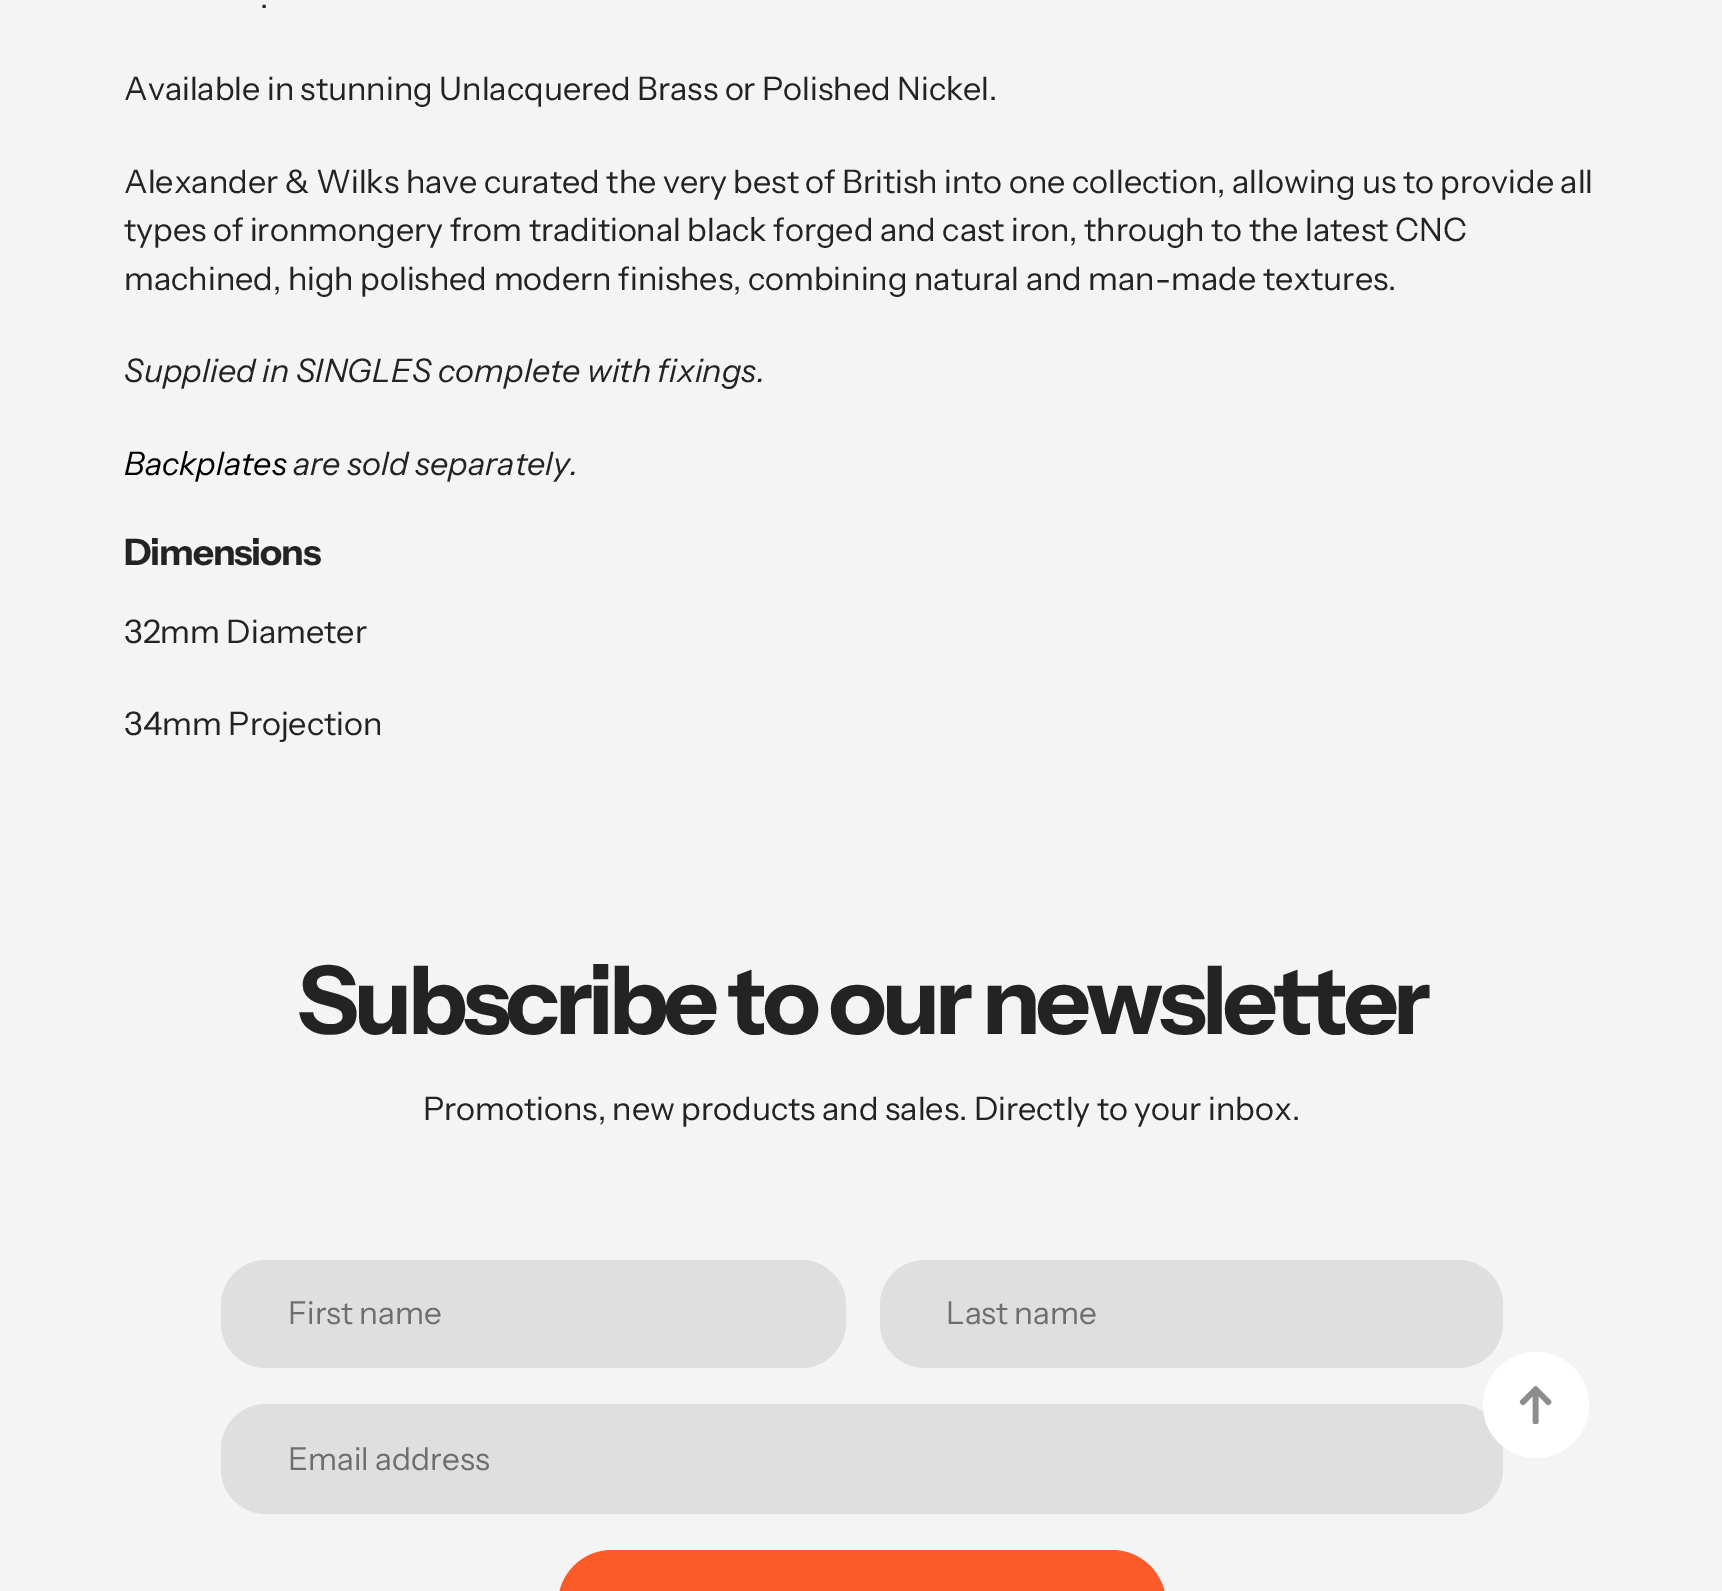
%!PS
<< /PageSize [1722 1591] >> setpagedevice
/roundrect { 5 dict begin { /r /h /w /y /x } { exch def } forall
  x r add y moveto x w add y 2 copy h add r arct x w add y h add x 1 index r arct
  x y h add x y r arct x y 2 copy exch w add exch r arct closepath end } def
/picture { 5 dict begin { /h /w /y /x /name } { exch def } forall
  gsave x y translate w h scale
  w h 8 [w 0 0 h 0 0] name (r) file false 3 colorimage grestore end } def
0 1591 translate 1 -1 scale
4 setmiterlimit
0.957 setgray
0 0 1722 1591 rectfill
/InstrumentSans-Regular [32.4 0 0 -32.4 0 0] selectfont
0.137 setgray
260 8 moveto (.) show
124 100 moveto (Available in stunning Unlacquered Brass or Polished Nickel.) show
124 193 moveto (Alexander & Wilks have curated the very best of British into one collection, allowing us to provide all) show
124 241 moveto (types of ironmongery from traditional black forged and cast iron, through to the latest CNC) show
124 290 moveto (machined, high polished modern finishes, combining natural and man-made textures.) show
/InstrumentSans-Italic [32.4 0 0 -32.4 0 0] selectfont
124 382 moveto (Supplied in SINGLES complete with fixings.) show
0 setgray
124 475 moveto (Backplates) show
0.137 setgray
293 475 moveto (are sold separately.) show
/InstrumentSans-Bold [36.5 0 0 -36.5 0 0] selectfont
124 565 moveto -1.1 0 (Dimensions) ashow
/InstrumentSans-Regular [32.4 0 0 -32.4 0 0] selectfont
124 643 moveto (32mm Diameter) show
124 735 moveto (34mm Projection) show
/InstrumentSans-Bold [94.75 0 0 -94.75 0 0] selectfont
297 1034 moveto -4.5 0 (Subscribe to our newsletter) ashow
/InstrumentSans-Regular [32.4 0 0 -32.4 0 0] selectfont
423 1120 moveto (Promotions, new products and sales. Directly to your inbox.) show
0.875 setgray
221 1260 625 108 45 roundrect fill
/InstrumentSans-Regular [31.5 0 0 -31.5 0 0] selectfont
0.431 setgray
288 1324 moveto (First name) show
0.875 setgray
880 1260 623 108 45 roundrect fill
0.431 setgray
946 1324 moveto (Last name) show
0.875 setgray
221 1404 1282 110 45 roundrect fill
0.431 setgray
288 1470 moveto (Email address) show
0.992 0.357 0.165 setrgbcolor
558 1550 608 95 54 roundrect fill
1 setgray
newpath 1536 1405 53 0 360 arc closepath fill
(img1.rgb) 1519 1386 33 38 picture
showpage
